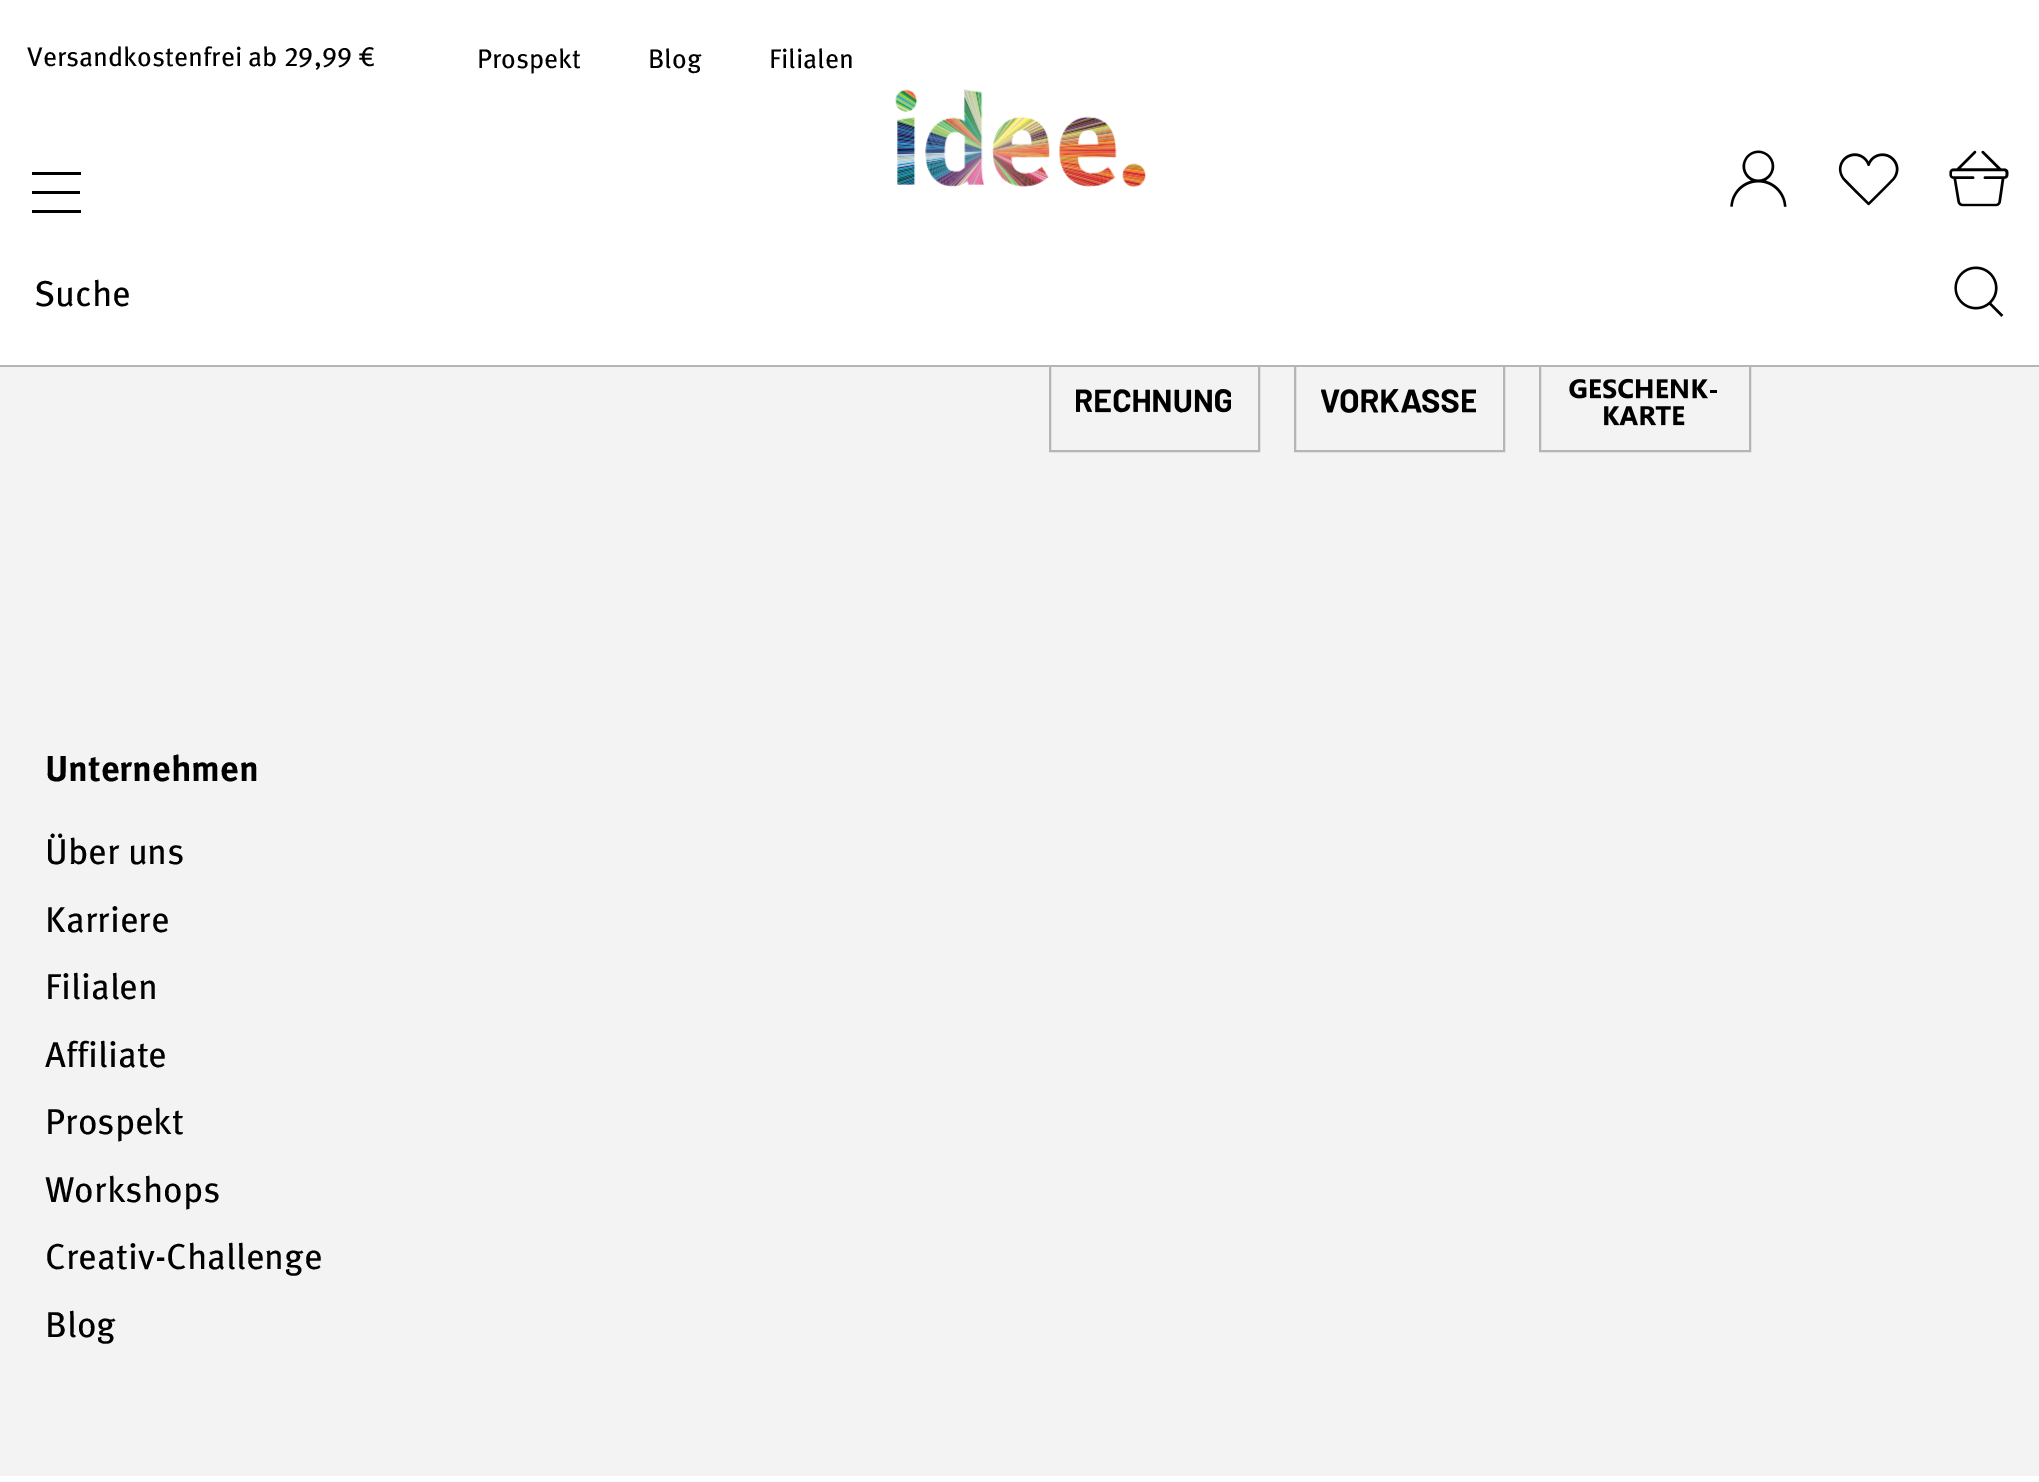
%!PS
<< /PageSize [2039 1482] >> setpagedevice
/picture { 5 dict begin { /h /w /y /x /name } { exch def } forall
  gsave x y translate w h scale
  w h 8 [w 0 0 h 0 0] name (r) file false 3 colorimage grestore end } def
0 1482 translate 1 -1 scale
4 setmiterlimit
0.953 setgray
0 0 2039 1482 rectfill
0.71 setgray
2 setlinewidth
1050 352 209 99 rectstroke
1295 352 209 99 rectstroke
1540 352 210 99 rectstroke
1 setgray
0 0 2039 365 rectfill
0.71 setgray
0 365 2039 2 rectfill
/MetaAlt-Regular [27 0 0 -27 0 0] selectfont
0 setgray
27 66 moveto (Versandkostenfrei ab 29,99 €) show
/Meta-Regular [27 0 0 -27 0 0] selectfont
477 68 moveto (Prospekt) show
648 68 moveto (Blog) show
769 68 moveto (Filialen) show
32 172 49 3 rectfill
32 210 49 3 rectfill
32 191 48 3 rectfill
(img1.rgb) 895 89 251 98 picture
(img2.rgb) 1730 150 57 57 picture
(img3.rgb) 1838 153 61 53 picture
(img4.rgb) 1949 150 60 57 picture
/Meta-Regular [36 0 0 -36 0 0] selectfont
34 306 moveto (Suche) show
(img5.rgb) 1954 266 50 51 picture
(img6.rgb) 1076 389 155 24 picture
(img7.rgb) 1321 389 155 24 picture
(img8.rgb) 1569 378 148 48 picture
/Meta-Bold [36 0 0 -36 0 0] selectfont
45 781 moveto (Unternehmen) show
/Meta-Regular [36 0 0 -36 0 0] selectfont
45 864 moveto (Über uns) show
45 932 moveto (Karriere) show
45 999 moveto (Filialen) show
45 1067 moveto (Affiliate) show
45 1134 moveto (Prospekt) show
45 1202 moveto (Workshops) show
45 1269 moveto (Creativ-Challenge) show
45 1337 moveto (Blog) show
1 setgray
0 1476 2039 6 rectfill
showpage
